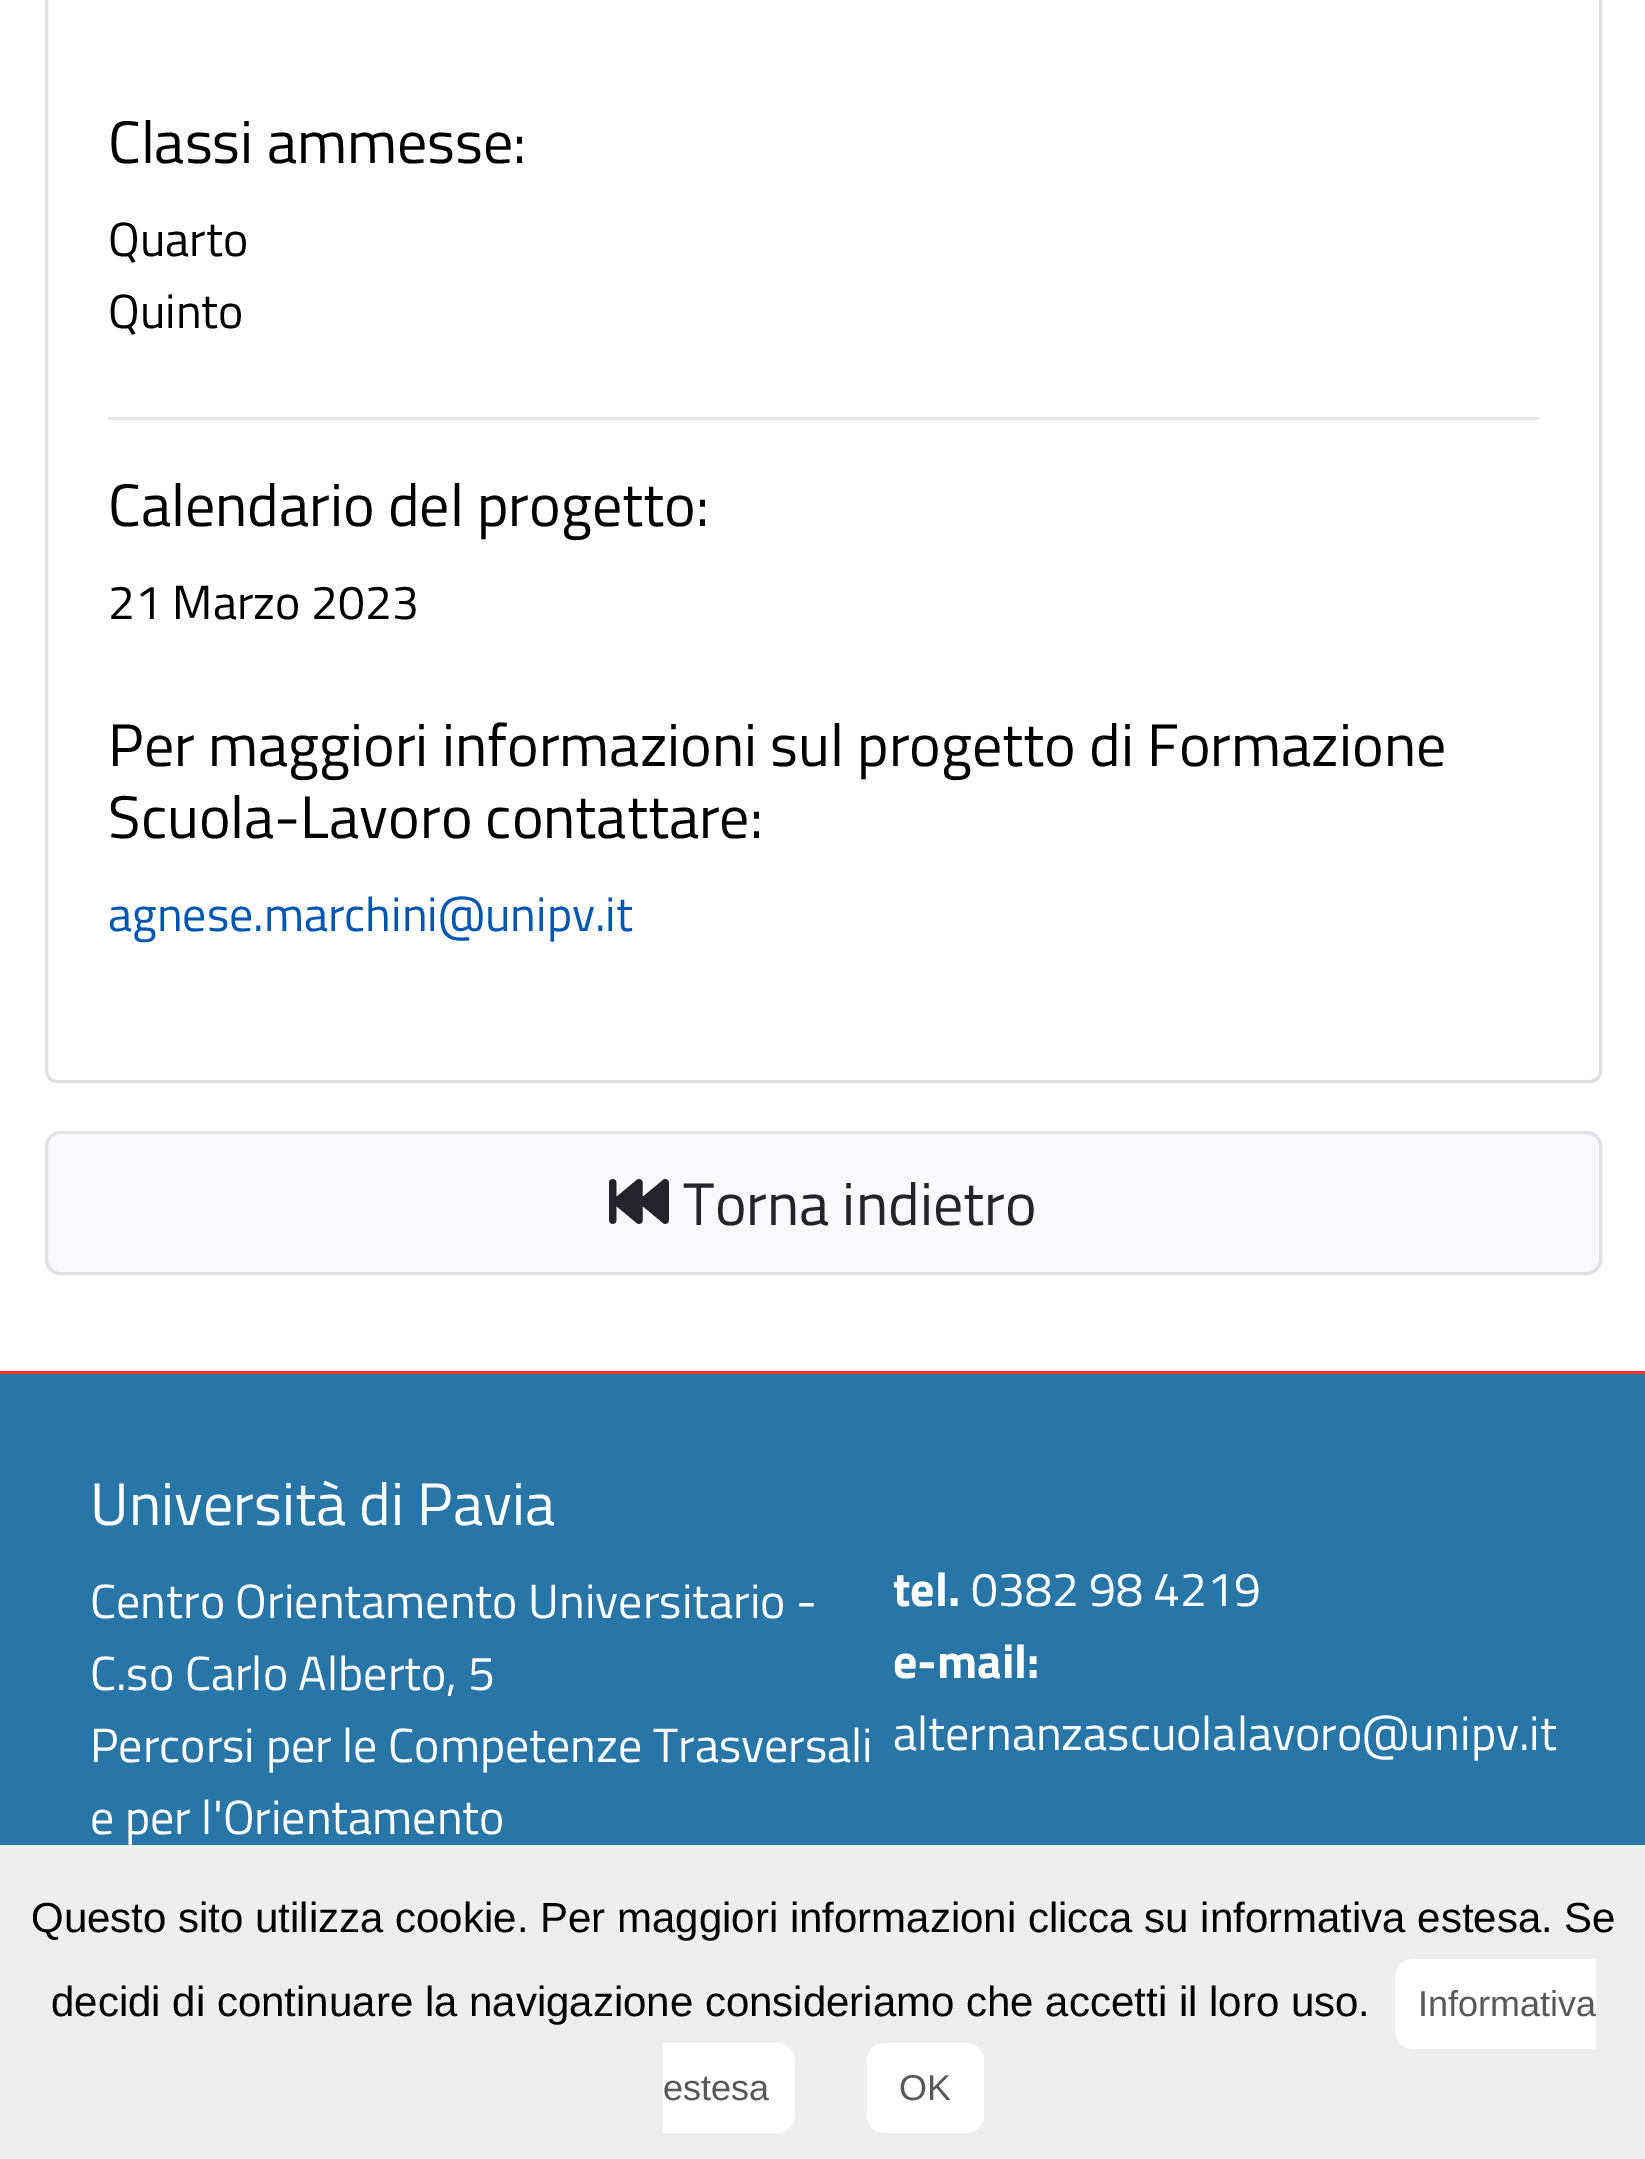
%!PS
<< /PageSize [1645 2159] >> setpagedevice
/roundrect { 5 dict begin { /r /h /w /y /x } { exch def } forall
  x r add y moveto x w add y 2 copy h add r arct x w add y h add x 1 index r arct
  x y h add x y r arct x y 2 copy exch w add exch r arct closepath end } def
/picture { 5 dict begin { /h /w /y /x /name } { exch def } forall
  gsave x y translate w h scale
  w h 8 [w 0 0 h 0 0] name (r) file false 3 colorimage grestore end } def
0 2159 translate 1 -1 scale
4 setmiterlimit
1 setgray
0 0 1645 2159 rectfill
0.875 setgray
3 setlinewidth
46.5 -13.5 1554 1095 10.5 roundrect stroke
/TitilliumWeb-Regular [60 0 0 -60 0 0] selectfont
0 setgray
108 163 moveto (Classi ammesse:) show
/TitilliumWeb-Regular [48 0 0 -48 0 0] selectfont
108 256 moveto (Quarto) show
108 328 moveto (Quinto) show
0.902 setgray
108 417 1431 3 rectfill
/TitilliumWeb-Regular [60 0 0 -60 0 0] selectfont
0 setgray
108 526 moveto (Calendario del progetto:) show
/TitilliumWeb-Regular [48 0 0 -48 0 0] selectfont
108 619 moveto (21 Marzo 2023) show
/TitilliumWeb-Regular [60 0 0 -60 0 0] selectfont
108 766 moveto (Per maggiori informazioni sul progetto di Formazione) show
108 838 moveto (Scuola-Lavoro contattare:) show
/TitilliumWeb-Regular [48 0 0 -48 0 0] selectfont
0 0.337 0.702 setrgbcolor
108 931 moveto (agnese.marchini@unipv.it) show
0.973 0.976 0.98 setrgbcolor
46.5 1132.5 1554 141 13.5 roundrect gsave fill grestore
0.871 0.886 0.902 setrgbcolor
stroke
(img1.rgb) 609 1179 60 45 picture
/TitilliumWeb-Regular [60 0 0 -60 0 0] selectfont
0.129 0.145 0.161 setrgbcolor
683 1225 moveto (Torna indietro) show
0.157 0.459 0.655 setrgbcolor
0 1374 1645 471 rectfill
0.996 0.18 0.18 setrgbcolor
0 1371 1645 3 rectfill
1 setgray
90 1525 moveto (Università di Pavia) show
/TitilliumWeb-Regular [48 0 0 -48 0 0] selectfont
90 1618 moveto (Centro Orientamento Universitario -) show
90 1690 moveto (C.so Carlo Alberto, 5) show
90 1762 moveto (Percorsi per le Competenze Trasversali) show
90 1834 moveto (e per l'Orientamento) show
/TitilliumWeb-Bold [48 0 0 -48 0 0] selectfont
893 1606 moveto (tel.) show
/TitilliumWeb-Regular [48 0 0 -48 0 0] selectfont
971 1606 moveto (0382 98 4219) show
/TitilliumWeb-Bold [48 0 0 -48 0 0] selectfont
893 1678 moveto (e-mail:) show
/TitilliumWeb-Regular [48 0 0 -48 0 0] selectfont
893 1750 moveto (alternanzascuolalavoro@unipv.it) show
0.933 setgray
0 1845 1645 314 rectfill
/LiberationSans-Regular [42 0 0 -42 0 0] selectfont
0 setgray
31 1932 moveto (Questo sito utilizza cookie. Per maggiori informazioni clicca su informativa estesa. Se) show
51 2016 moveto (decidi di continuare la navigazione consideriamo che accetti il loro uso.) show
1 setgray
newpath 1413 1959 moveto 1596 1959 lineto 1596 2049 lineto 1413 2049 lineto 1403 2049 1395 2041 1395 2031 curveto 1395 1977 lineto 1395 1967 1403 1959 1413 1959 curveto closepath fill
/LiberationSans-Regular [36 0 0 -36 0 0] selectfont
0.345 setgray
1418 2016 moveto (Informativa) show
1 setgray
newpath 663 2043 moveto 777 2043 lineto 787 2043 795 2051 795 2061 curveto 795 2115 lineto 795 2125 787 2133 777 2133 curveto 663 2133 lineto closepath fill
0.345 setgray
663 2100 moveto (estesa) show
1 setgray
867 2043 117 90 18 roundrect fill
0.345 setgray
899 2100 moveto (OK) show
showpage
